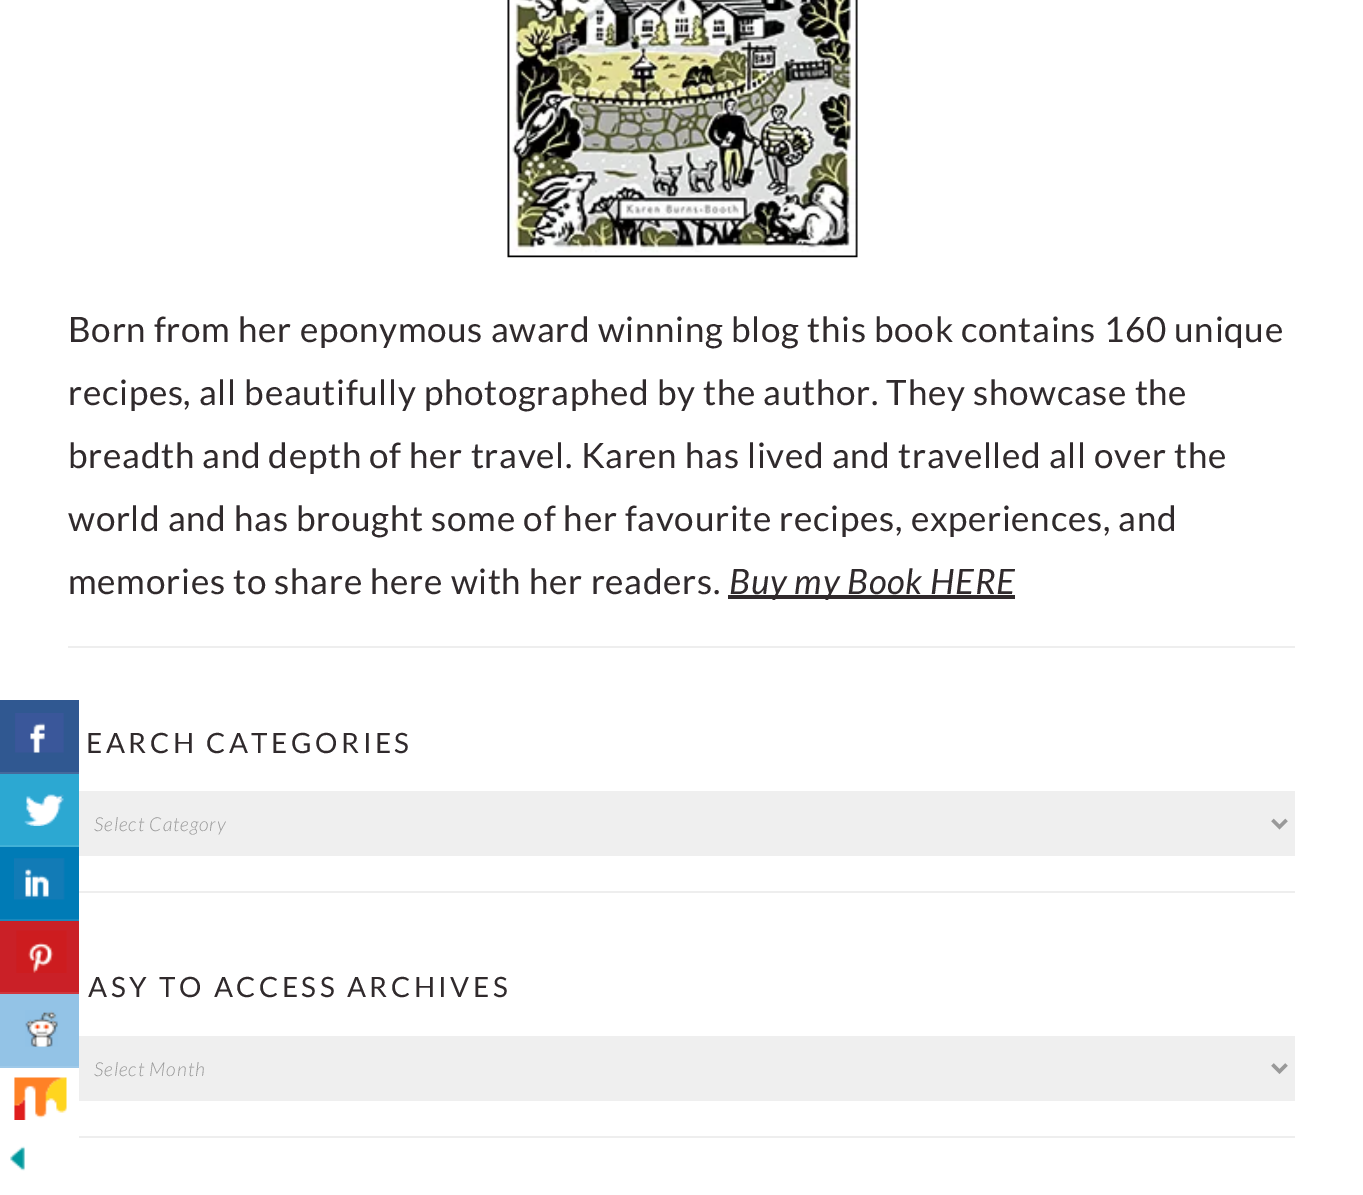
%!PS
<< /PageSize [1363 1195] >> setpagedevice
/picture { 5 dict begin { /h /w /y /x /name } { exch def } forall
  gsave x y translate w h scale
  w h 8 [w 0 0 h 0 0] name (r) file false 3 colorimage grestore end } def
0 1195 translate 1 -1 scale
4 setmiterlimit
1 setgray
0 0 1363 1195 rectfill
0.188 0.345 0.569 setrgbcolor
0 700 79 72 rectfill
0.271 0.412 0.612 setrgbcolor
0 772 79 2 rectfill
(img1.rgb) 15 713 49 40 picture
0.173 0.659 0.824 setrgbcolor
0 774 79 71 rectfill
0.255 0.694 0.843 setrgbcolor
0 845 79 2 rectfill
(img2.rgb) 24 794 40 32 picture
0 0.482 0.714 setrgbcolor
0 847 79 72 rectfill
0.102 0.533 0.741 setrgbcolor
0 919 79 2 rectfill
(img3.rgb) 14 858 51 42 picture
0.792 0.125 0.153 setrgbcolor
0 921 79 71 rectfill
0.812 0.212 0.239 setrgbcolor
0 992 79 2 rectfill
(img4.rgb) 16 930 51 43 picture
0.576 0.765 0.902 setrgbcolor
0 994 79 72 rectfill
0.62 0.788 0.914 setrgbcolor
0 1066 79 2 rectfill
(img5.rgb) 25 1010 33 37 picture
(img6.rgb) 14 1077 53 43 picture
(img7.rgb) 10 1146 15 25 picture
0.933 setgray
68 646 1227 2 rectfill
(img8.rgb) 507 0 351 258 picture
/Lato-Regular [35 0 0 -35 0 0] selectfont
0.188 0.165 0.173 setrgbcolor
68 342 moveto 0.7 0 (Born from her eponymous award winning blog this book contains 160 unique) ashow
68 405 moveto 0.7 0 (recipes, all beautifully photographed by the author. They showcase the) ashow
68 468 moveto 0.7 0 (breadth and depth of her travel. Karen has lived and travelled all over the) ashow
68 531 moveto 0.7 0 (world and has brought some of her favourite recipes, experiences, and) ashow
68 594 moveto 0.7 0 (memories to share here with her readers.) ashow
728 595 287 4 rectfill
/Lato-Italic [35 0 0 -35 0 0] selectfont
729 594 moveto 0.7 0 (Buy my Book HERE) ashow
0.933 setgray
79 891 1216 2 rectfill
/Lato-Regular [28 0 0 -28 0 0] selectfont
0.188 0.165 0.173 setrgbcolor
86 753 moveto 3.5 0 (EARCH CATEGORIES) ashow
0.937 setgray
79 791 1216 65 rectfill
0.6 setgray
3.5 setlinewidth
newpath 1272.5 820 moveto 1279.5 827 lineto 1286.5 820 lineto stroke
/Lato-LightItalic [19.25 0 0 -19.25 0 0] selectfont
94 831 moveto 0.9 0 (Select Category) ashow
0.933 setgray
79 1136 1216 2 rectfill
/Lato-Regular [28 0 0 -28 0 0] selectfont
0.188 0.165 0.173 setrgbcolor
88 997 moveto 3.5 0 (ASY TO ACCESS ARCHIVES) ashow
0.937 setgray
79 1036 1216 65 rectfill
0.6 setgray
newpath 1272.5 1064.5 moveto 1279.5 1071.5 lineto 1286.5 1064.5 lineto stroke
/Lato-LightItalic [19.25 0 0 -19.25 0 0] selectfont
94 1076 moveto 0.9 0 (Select Month) ashow
showpage
